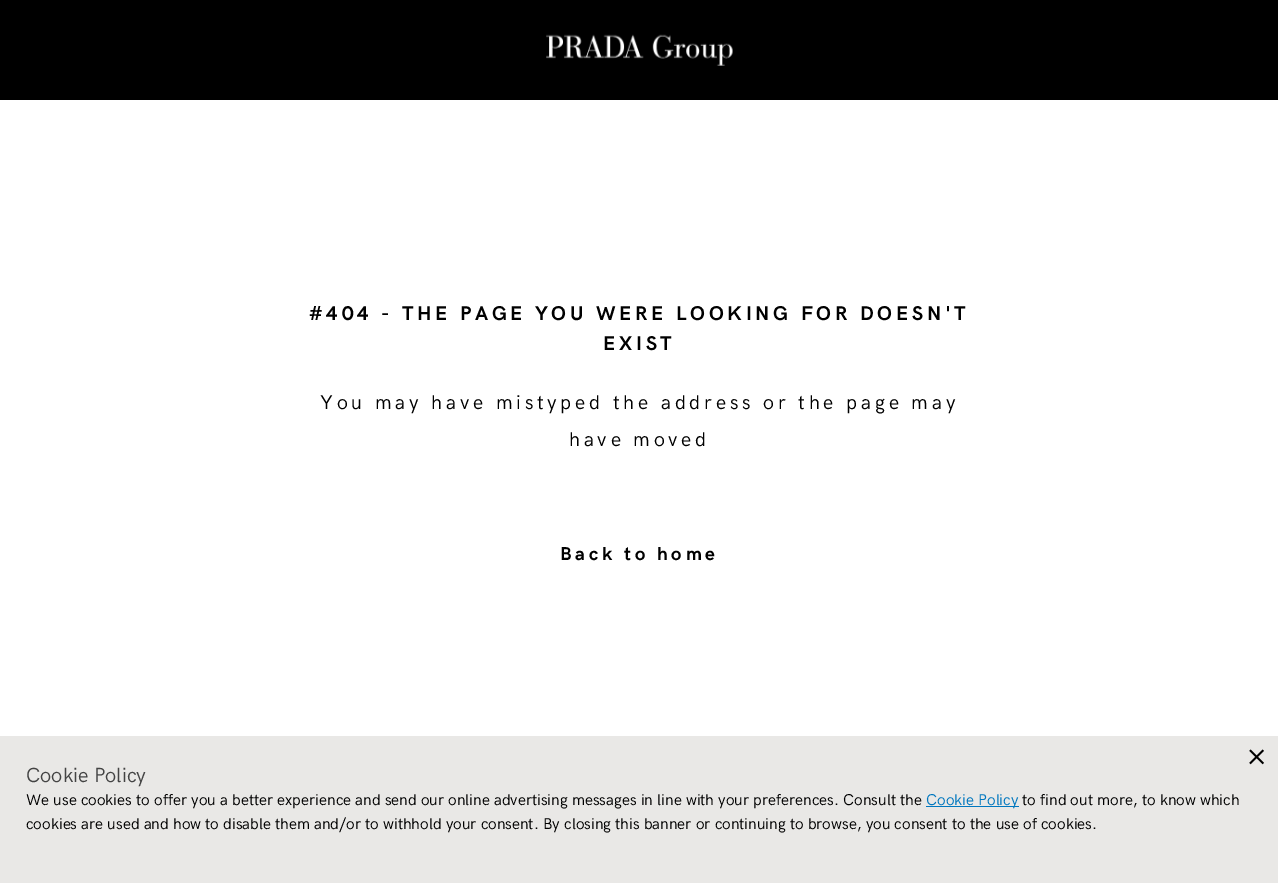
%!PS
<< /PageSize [1278 883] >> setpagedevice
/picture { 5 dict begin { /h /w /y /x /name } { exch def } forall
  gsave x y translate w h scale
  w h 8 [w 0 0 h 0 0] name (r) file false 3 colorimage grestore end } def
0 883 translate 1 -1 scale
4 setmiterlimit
1 setgray
0 0 1278 883 rectfill
0 setgray
0 0 1278 100 rectfill
(img1.rgb) 546 34 187 32 picture
/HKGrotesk-Bold [20 0 0 -20 0 0] selectfont
309 320 moveto 3.75 0 (#404 - THE PAGE YOU WERE LOOKING FOR DOESN'T) ashow
603 350 moveto 3.75 0 (EXIST) ashow
/HKGrotesk-Regular [20 0 0 -20 0 0] selectfont
320 409 moveto 3.75 0 (You may have mistyped the address or the page may) ashow
569 446 moveto 3.75 0 (have moved) ashow
/HKGrotesk-Bold [18.75 0 0 -18.75 0 0] selectfont
560 560 moveto 3.75 0 (Back to home) ashow
0.914 0.91 0.902 setrgbcolor
0 736 1278 147 rectfill
(img2.rgb) 1249 749 15 16 picture
/HKGrotesk-Regular [20.5 0 0 -20.5 0 0] selectfont
0.267 setgray
26 782 moveto (Cookie Policy) show
/HKGrotesk-Regular [15.75 0 0 -15.75 0 0] selectfont
0 setgray
26 805 moveto (We use cookies to offer you a better experience and send our online advertising messages in line with your preferences. Consult the) show
0 0.467 0.749 setrgbcolor
926 806 93 1 rectfill
926 805 moveto (Cookie Policy) show
0 setgray
1022 805 moveto (to find out more, to know which) show
26 829 moveto (cookies are used and how to disable them and/or to withhold your consent. By closing this banner or continuing to browse, you consent to the use of cookies.) show
showpage
